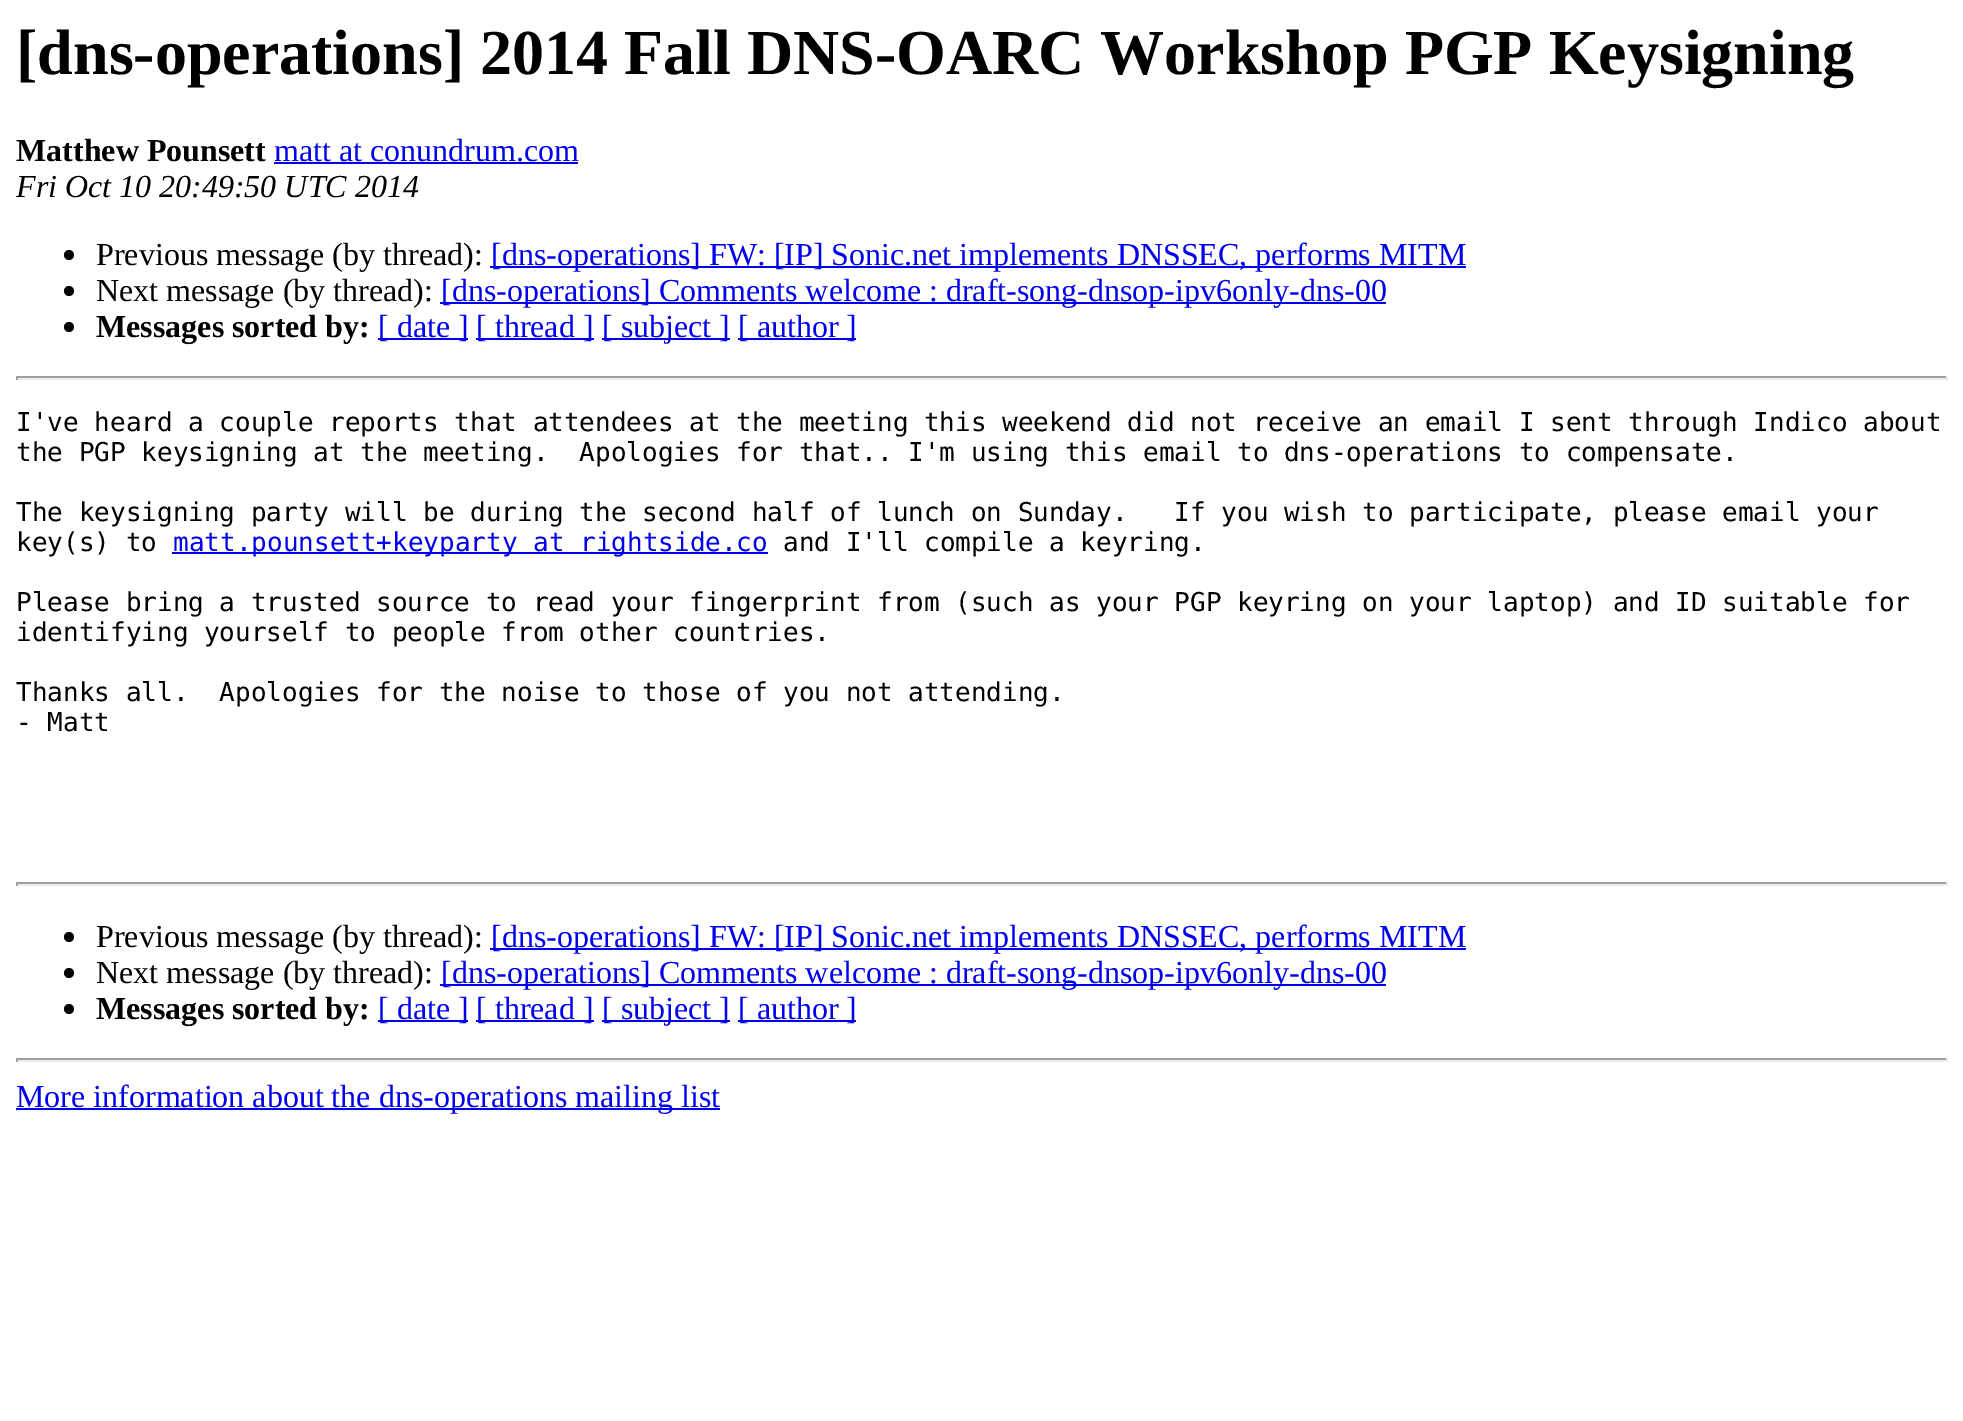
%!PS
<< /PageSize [1963 1421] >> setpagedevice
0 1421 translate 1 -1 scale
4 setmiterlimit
1 setgray
0 0 1963 1421 rectfill
/LiberationSerif-Bold [64 0 0 -64 0 0] selectfont
0 setgray
16 74 moveto ([dns-operations] 2014 Fall DNS-OARC Workshop PGP Keysigning) show
/LiberationSerif-Bold [32 0 0 -32 0 0] selectfont
16 161 moveto (Matthew Pounsett) show
/LiberationSerif-Regular [32 0 0 -32 0 0] selectfont
0 0 0.933 setrgbcolor
274 161 moveto (matt at conundrum.com) show
274 162 304 2 rectfill
/LiberationSerif-Italic [32 0 0 -32 0 0] selectfont
0 setgray
16 197 moveto (Fri Oct 10 20:49:50 UTC 2014) show
newpath 69 255 5 0 360 arc closepath fill
/LiberationSerif-Regular [32 0 0 -32 0 0] selectfont
96 265 moveto (Previous message \(by thread\):) show
0 0 0.933 setrgbcolor
490 266 976 2 rectfill
491 265 moveto ([dns-operations] FW: [IP] Sonic.net implements DNSSEC, performs MITM) show
0 setgray
newpath 69 291 5 0 360 arc closepath fill
96 301 moveto (Next message \(by thread\):) show
0 0 0.933 setrgbcolor
440 302 946 2 rectfill
441 301 moveto ([dns-operations] Comments welcome : draft-song-dnsop-ipv6only-dns-00) show
0 setgray
newpath 69 327 5 0 360 arc closepath fill
/LiberationSerif-Bold [32 0 0 -32 0 0] selectfont
96 337 moveto (Messages sorted by:) show
0 0 0.933 setrgbcolor
378 338 90 2 rectfill
/LiberationSerif-Regular [32 0 0 -32 0 0] selectfont
378 337 moveto ([ date ]) show
476 338 118 2 rectfill
476 337 moveto ([ thread ]) show
602 338 128 2 rectfill
602 337 moveto ([ subject ]) show
738 338 118 2 rectfill
738 337 moveto ([ author ]) show
0.624 setgray
16 376 1932 2 rectfill
0.933 setgray
1946 376 2 4 rectfill
16 378 1932 2 rectfill
0.624 setgray
16 376 2 4 rectfill
/DejaVuSansMono-Regular [26 0 0 -26 0 0] selectfont
0 setgray
16 431 moveto (I've heard a couple reports that attendees at the meeting this weekend did not receive an email I sent through Indico about) show
16 461 moveto (the PGP keysigning at the meeting.  Apologies for that.. I'm using this email to dns-operations to compensate.) show
16 521 moveto (The keysigning party will be during the second half of lunch on Sunday.   If you wish to participate, please email your) show
16 551 moveto (key\(s\) to) show
0 0 0.933 setrgbcolor
172 552 596 2 rectfill
173 551 moveto (matt.pounsett+keyparty at rightside.co) show
0 setgray
783 551 moveto (and I'll compile a keyring.) show
16 611 moveto (Please bring a trusted source to read your fingerprint from \(such as your PGP keyring on your laptop\) and ID suitable for) show
16 641 moveto (identifying yourself to people from other countries.) show
16 701 moveto (Thanks all.  Apologies for the noise to those of you not attending.) show
16 731 moveto (- Matt) show
0.624 setgray
16 882 1932 2 rectfill
0.933 setgray
1946 882 2 4 rectfill
16 884 1932 2 rectfill
0.624 setgray
16 882 2 4 rectfill
0 setgray
newpath 69 937 5 0 360 arc closepath fill
/LiberationSerif-Regular [32 0 0 -32 0 0] selectfont
96 947 moveto (Previous message \(by thread\):) show
0 0 0.933 setrgbcolor
490 948 976 2 rectfill
491 947 moveto ([dns-operations] FW: [IP] Sonic.net implements DNSSEC, performs MITM) show
0 setgray
newpath 69 973 5 0 360 arc closepath fill
96 983 moveto (Next message \(by thread\):) show
0 0 0.933 setrgbcolor
440 984 946 2 rectfill
441 983 moveto ([dns-operations] Comments welcome : draft-song-dnsop-ipv6only-dns-00) show
0 setgray
newpath 69 1009 5 0 360 arc closepath fill
/LiberationSerif-Bold [32 0 0 -32 0 0] selectfont
96 1019 moveto (Messages sorted by:) show
0 0 0.933 setrgbcolor
378 1020 90 2 rectfill
/LiberationSerif-Regular [32 0 0 -32 0 0] selectfont
378 1019 moveto ([ date ]) show
476 1020 118 2 rectfill
476 1019 moveto ([ thread ]) show
602 1020 128 2 rectfill
602 1019 moveto ([ subject ]) show
738 1020 118 2 rectfill
738 1019 moveto ([ author ]) show
0.624 setgray
16 1058 1932 2 rectfill
0.933 setgray
1946 1058 2 4 rectfill
16 1060 1932 2 rectfill
0.624 setgray
16 1058 2 4 rectfill
0 0 0.933 setrgbcolor
16 1108 704 2 rectfill
16 1107 moveto (More information about the dns-operations mailing list) show
showpage
